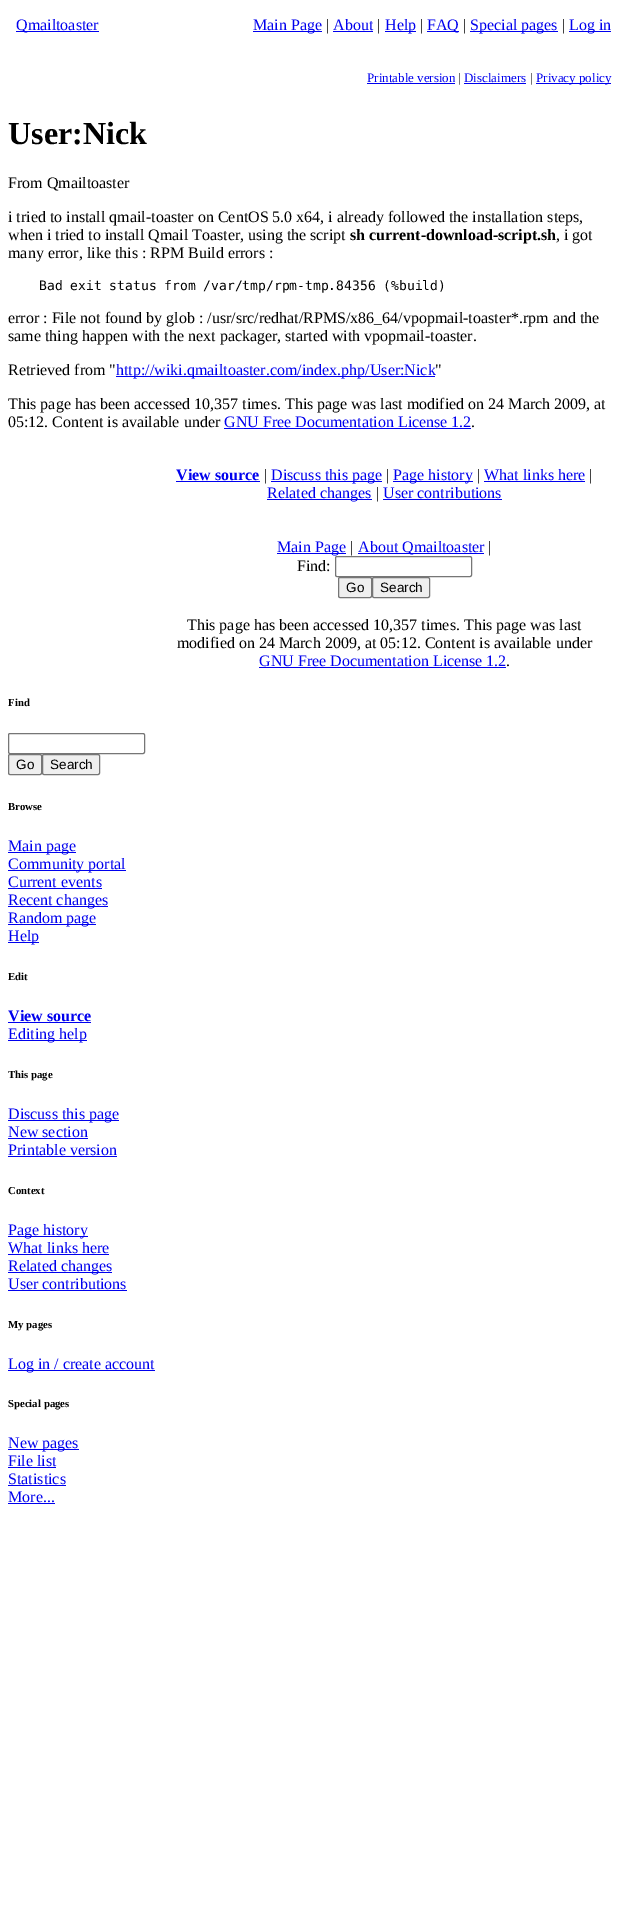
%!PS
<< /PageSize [627 1908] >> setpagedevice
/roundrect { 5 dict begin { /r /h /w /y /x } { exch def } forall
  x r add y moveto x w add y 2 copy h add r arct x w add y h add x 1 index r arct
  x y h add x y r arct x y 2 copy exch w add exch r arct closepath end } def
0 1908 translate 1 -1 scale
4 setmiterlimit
1 setgray
0 0 627 1908 rectfill
0 0 0.933 setrgbcolor
16 31 83 1 rectfill
/LiberationSerif-Regular [16 0 0 -16 0 0] selectfont
16 30 moveto (Qmailtoaster) show
253 31 69 1 rectfill
253 30 moveto (Main Page) show
0 setgray
326 30 moveto (|) show
0 0 0.933 setrgbcolor
333 30 moveto (About) show
333 31 40 1 rectfill
0 setgray
377 30 moveto (|) show
0 0 0.933 setrgbcolor
385 31 31 1 rectfill
385 30 moveto (Help) show
0 setgray
420 30 moveto (|) show
0 0 0.933 setrgbcolor
427 31 32 1 rectfill
427 30 moveto (FAQ) show
0 setgray
463 30 moveto (|) show
0 0 0.933 setrgbcolor
470 31 88 1 rectfill
470 30 moveto (Special pages) show
0 setgray
562 30 moveto (|) show
0 0 0.933 setrgbcolor
569 31 42 1 rectfill
569 30 moveto (Log in) show
/LiberationSerif-Regular [13 0 0 -13 0 0] selectfont
367 82 moveto (Printable version) show
367 83 88 1 rectfill
0 setgray
458 82 moveto (|) show
0 0 0.933 setrgbcolor
464 82 moveto (Disclaimers) show
464 83 62 1 rectfill
0 setgray
530 82 moveto (|) show
0 0 0.933 setrgbcolor
536 83 75 1 rectfill
536 82 moveto (Privacy policy) show
/LiberationSerif-Bold [32 0 0 -32 0 0] selectfont
0 setgray
8 144 moveto (User:Nick) show
/LiberationSerif-Regular [16 0 0 -16 0 0] selectfont
8 188 moveto (From Qmailtoaster) show
8 222 moveto (i tried to install qmail-toaster on CentOS 5.0 x64, i already followed the installation steps,) show
8 240 moveto (when i tried to install Qmail Toaster, using the script) show
/LiberationSerif-Bold [16 0 0 -16 0 0] selectfont
350 240 moveto (sh current-download-script.sh) show
/LiberationSerif-Regular [16 0 0 -16 0 0] selectfont
556 240 moveto (, i got) show
8 258 moveto (many error, like this : RPM Build errors :) show
/DejaVuSansMono-Regular [13 0 0 -13 0 0] selectfont
39 290 moveto (Bad exit status from /var/tmp/rpm-tmp.84356 \(%build\)) show
/LiberationSerif-Regular [16 0 0 -16 0 0] selectfont
8 323 moveto (error : File not found by glob : /usr/src/redhat/RPMS/x86_64/vpopmail-toaster*.rpm and the) show
8 341 moveto (same thing happen with the next packager, started with vpopmail-toaster.) show
8 375 moveto (Retrieved from ") show
0 0 0.933 setrgbcolor
116 376 319 1 rectfill
116 375 moveto (http://wiki.qmailtoaster.com/index.php/User:Nick) show
0 setgray
435 375 moveto (") show
8 409 moveto (This page has been accessed 10,357 times. This page was last modified on 24 March 2009, at) show
8 427 moveto (05:12. Content is available under) show
0 0 0.933 setrgbcolor
224 427 moveto (GNU Free Documentation License 1.2) show
224 428 247 1 rectfill
0 setgray
471 427 moveto (.) show
/LiberationSerif-Bold [16 0 0 -16 0 0] selectfont
0 0 0.933 setrgbcolor
176 480 moveto (View source) show
176 481 84 1 rectfill
/LiberationSerif-Regular [16 0 0 -16 0 0] selectfont
0 setgray
264 480 moveto (|) show
0 0 0.933 setrgbcolor
271 481 111 1 rectfill
271 480 moveto (Discuss this page) show
0 setgray
386 480 moveto (|) show
0 0 0.933 setrgbcolor
393 481 80 1 rectfill
393 480 moveto (Page history) show
0 setgray
477 480 moveto (|) show
0 0 0.933 setrgbcolor
484 480 moveto (What links here) show
484 481 101 1 rectfill
0 setgray
589 480 moveto (|) show
0 0 0.933 setrgbcolor
267 499 105 1 rectfill
267 498 moveto (Related changes) show
0 setgray
376 498 moveto (|) show
0 0 0.933 setrgbcolor
383 498 moveto (User contributions) show
383 499 119 1 rectfill
277 553 69 1 rectfill
277 552 moveto (Main Page) show
0 setgray
350 552 moveto (|) show
0 0 0.933 setrgbcolor
358 553 126 1 rectfill
358 552 moveto (About Qmailtoaster) show
0 setgray
488 552 moveto (|) show
297 571 moveto (Find:) show
0.463 setgray
335.5 556.5 136 20 1.5 roundrect stroke
0.937 setgray
338.5 577.5 33 20 1.5 roundrect gsave fill grestore
0.463 setgray
stroke
/LiberationSans-Regular [13.5 0 0 -13.5 0 0] selectfont
0 setgray
346 592 moveto (Go) show
0.937 setgray
372.5 577.5 57 20 1.5 roundrect gsave fill grestore
0.463 setgray
stroke
0 setgray
380 592 moveto (Search) show
/LiberationSerif-Regular [16 0 0 -16 0 0] selectfont
187 630 moveto (This page has been accessed 10,357 times. This page was last) show
177 648 moveto (modified on 24 March 2009, at 05:12. Content is available under) show
0 0 0.933 setrgbcolor
259 666 moveto (GNU Free Documentation License 1.2) show
259 667 247 1 rectfill
0 setgray
506 666 moveto (.) show
/LiberationSerif-Bold [10.75 0 0 -10.75 0 0] selectfont
8 706 moveto (Find) show
0.463 setgray
8.5 733.5 136 20 1.5 roundrect stroke
0.937 setgray
8.5 754.5 33 20 1.5 roundrect gsave fill grestore
0.463 setgray
stroke
/LiberationSans-Regular [13.5 0 0 -13.5 0 0] selectfont
0 setgray
16 769 moveto (Go) show
0.937 setgray
42.5 754.5 57 20 1.5 roundrect gsave fill grestore
0.463 setgray
stroke
0 setgray
50 769 moveto (Search) show
/LiberationSerif-Bold [10.75 0 0 -10.75 0 0] selectfont
8 810 moveto (Browse) show
0 0 0.933 setrgbcolor
8 852 68 1 rectfill
/LiberationSerif-Regular [16 0 0 -16 0 0] selectfont
8 851 moveto (Main page) show
8 870 118 1 rectfill
8 869 moveto (Community portal) show
8 887 moveto (Current events) show
8 888 94 1 rectfill
8 906 100 1 rectfill
8 905 moveto (Recent changes) show
8 924 88 1 rectfill
8 923 moveto (Random page) show
8 942 31 1 rectfill
8 941 moveto (Help) show
/LiberationSerif-Bold [10.75 0 0 -10.75 0 0] selectfont
0 setgray
8 980 moveto (Edit) show
/LiberationSerif-Bold [16 0 0 -16 0 0] selectfont
0 0 0.933 setrgbcolor
8 1021 moveto (View source) show
8 1022 83 1 rectfill
8 1040 79 1 rectfill
/LiberationSerif-Regular [16 0 0 -16 0 0] selectfont
8 1039 moveto (Editing help) show
/LiberationSerif-Bold [10.75 0 0 -10.75 0 0] selectfont
0 setgray
8 1078 moveto (This page) show
0 0 0.933 setrgbcolor
8 1120 111 1 rectfill
/LiberationSerif-Regular [16 0 0 -16 0 0] selectfont
8 1119 moveto (Discuss this page) show
8 1137 moveto (New section) show
8 1138 80 1 rectfill
8 1155 moveto (Printable version) show
8 1156 109 1 rectfill
/LiberationSerif-Bold [10.75 0 0 -10.75 0 0] selectfont
0 setgray
8 1194 moveto (Context) show
0 0 0.933 setrgbcolor
8 1236 80 1 rectfill
/LiberationSerif-Regular [16 0 0 -16 0 0] selectfont
8 1235 moveto (Page history) show
8 1253 moveto (What links here) show
8 1254 101 1 rectfill
8 1272 104 1 rectfill
8 1271 moveto (Related changes) show
8 1289 moveto (User contributions) show
8 1290 119 1 rectfill
/LiberationSerif-Bold [10.75 0 0 -10.75 0 0] selectfont
0 setgray
8 1328 moveto (My pages) show
0 0 0.933 setrgbcolor
8 1370 147 1 rectfill
/LiberationSerif-Regular [16 0 0 -16 0 0] selectfont
8 1369 moveto (Log in / create account) show
/LiberationSerif-Bold [10.75 0 0 -10.75 0 0] selectfont
0 setgray
8 1407 moveto (Special pages) show
0 0 0.933 setrgbcolor
8 1449 71 1 rectfill
/LiberationSerif-Regular [16 0 0 -16 0 0] selectfont
8 1448 moveto (New pages) show
8 1466 moveto (File list) show
8 1467 48 1 rectfill
8 1484 moveto (Statistics) show
8 1485 58 1 rectfill
8 1502 moveto (More...) show
8 1503 47 1 rectfill
showpage
